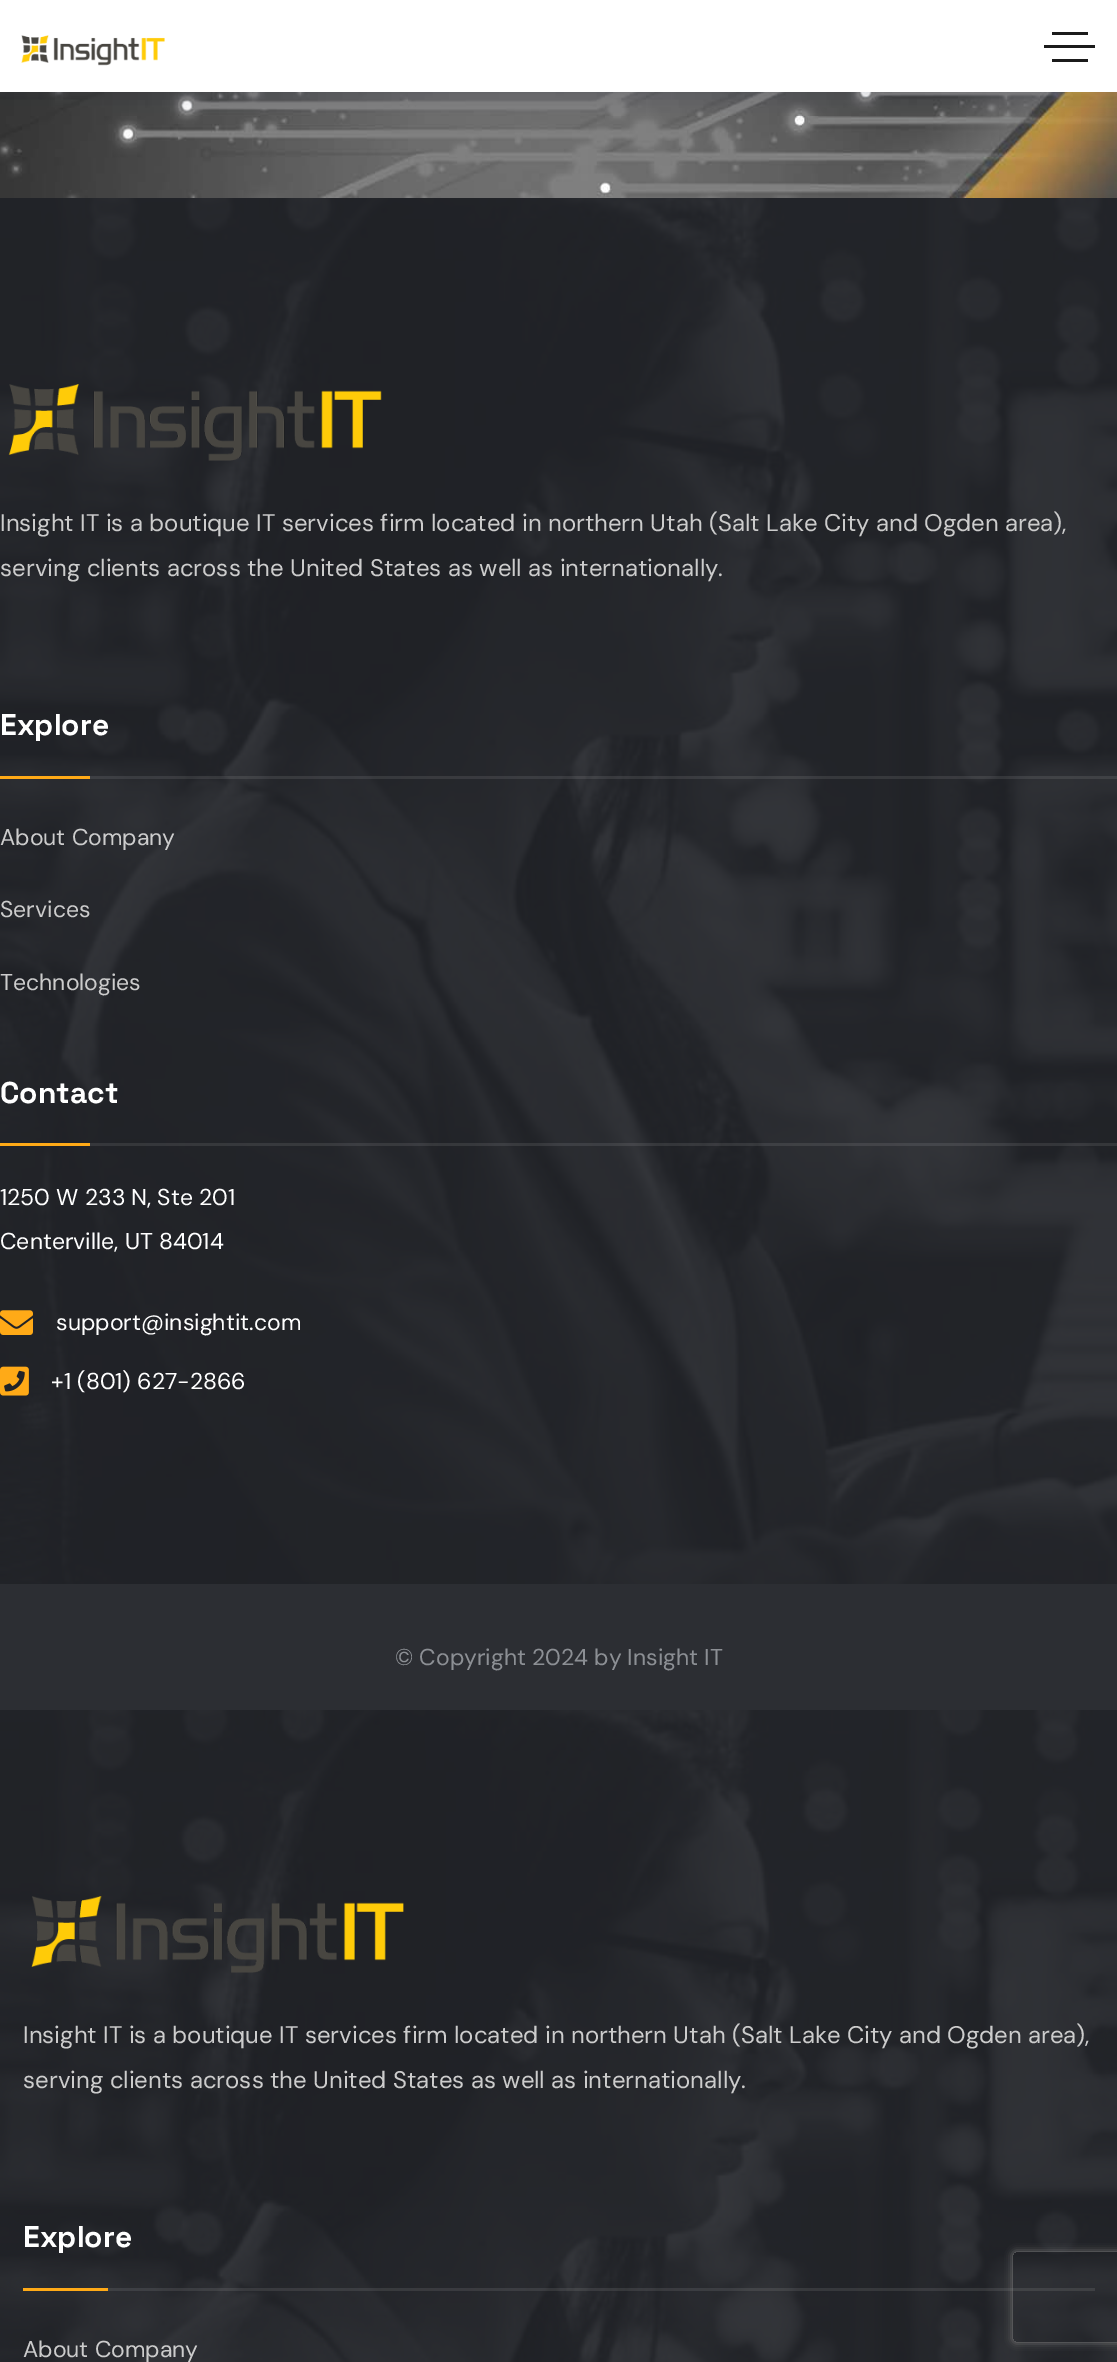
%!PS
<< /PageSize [1117 2362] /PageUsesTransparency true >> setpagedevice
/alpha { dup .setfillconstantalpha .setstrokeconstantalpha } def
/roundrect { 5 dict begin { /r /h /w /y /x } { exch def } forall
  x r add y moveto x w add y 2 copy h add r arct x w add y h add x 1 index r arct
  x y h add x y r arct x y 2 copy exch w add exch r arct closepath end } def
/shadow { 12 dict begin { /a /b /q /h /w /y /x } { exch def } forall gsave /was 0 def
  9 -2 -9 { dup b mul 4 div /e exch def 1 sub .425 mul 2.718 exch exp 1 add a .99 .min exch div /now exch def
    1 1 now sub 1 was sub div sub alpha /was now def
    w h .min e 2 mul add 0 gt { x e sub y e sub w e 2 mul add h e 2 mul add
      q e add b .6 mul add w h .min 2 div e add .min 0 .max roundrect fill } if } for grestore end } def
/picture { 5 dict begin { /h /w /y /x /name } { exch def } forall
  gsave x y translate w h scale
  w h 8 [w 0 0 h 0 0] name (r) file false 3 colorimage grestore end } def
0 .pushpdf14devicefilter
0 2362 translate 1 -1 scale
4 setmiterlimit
1 setgray
0 0 1117 2362 rectfill
(img2.rgb) 0 92 1117 106 picture
0 setgray
0 0 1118 92 0 11 0.08 shadow
1 setgray
0 0 1117 92 rectfill
gsave
newpath 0 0 moveto 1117 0 lineto 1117 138 lineto 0 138 lineto closepath 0 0 moveto 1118 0 lineto 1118 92 lineto 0 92 lineto closepath eoclip newpath
0.008 0.082 0.306 setrgbcolor
0 5 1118 91 0 13.5 0.09 shadow
grestore
(img1.rgb) 21 35 144 31 picture
0.106 setgray
1052 32 36 3 rectfill
1044 45 51 3 rectfill
1052 59 36 3 rectfill
(img3.rgb) 0 198 1117 1386 picture
(img4.rgb) 8 384 374 77 picture
/DMSans-Regular [24 0 0 -24 0 0] selectfont
0.8 setgray
0 531 moveto (Insight IT is a boutique IT services firm located in northern Utah \(Salt Lake City and Ogden area\),) show
0 576 moveto (serving clients across the United States as well as internationally.) show
/SpaceGrotesk-Bold [30 0 0 -30 0 0] selectfont
1 setgray
0 735 moveto (Explore) show
1 0.667 0.09 setrgbcolor
0 776 90 3 rectfill
0.09 alpha
1 setgray
90 776 1027 3 rectfill
/DMSans-Regular [23 0 0 -23 0 0] selectfont
1 alpha
0.8 setgray
0 845 moveto (About Company) show
0 917 moveto (Services) show
0 990 moveto (Technologies) show
/SpaceGrotesk-Bold [30 0 0 -30 0 0] selectfont
1 setgray
0 1103 moveto (Contact) show
1 0.667 0.09 setrgbcolor
0 1143 90 3 rectfill
0.09 alpha
1 setgray
90 1143 1027 3 rectfill
/DMSans-Regular [23 0 0 -23 0 0] selectfont
1 alpha
0 1205 moveto (1250 W 233 N, Ste 201) show
0 1249 moveto (Centerville, UT 84014) show
(img5.rgb) 0 1310 33 25 picture
56 1330 moveto (support@insightit.com) show
(img6.rgb) 0 1366 29 30 picture
51 1389 moveto (+1 \(801\) 627-2866) show
0.173 0.18 0.2 setrgbcolor
0 1584 1117 126 rectfill
0.549 0.561 0.58 setrgbcolor
395 1665 moveto (© Copyright 2024 by Insight IT) show
(img7.rgb) 0 1710 1117 652 picture
(img8.rgb) 31 1896 373 77 picture
/DMSans-Regular [24 0 0 -24 0 0] selectfont
0.8 setgray
23 2043 moveto (Insight IT is a boutique IT services firm located in northern Utah \(Salt Lake City and Ogden area\),) show
23 2088 moveto (serving clients across the United States as well as internationally.) show
/SpaceGrotesk-Bold [30 0 0 -30 0 0] selectfont
1 setgray
23 2247 moveto (Explore) show
1 0.667 0.09 setrgbcolor
23 2288 85 3 rectfill
0.09 alpha
1 setgray
108 2288 987 3 rectfill
/DMSans-Regular [23 0 0 -23 0 0] selectfont
1 alpha
0.8 setgray
23 2357 moveto (About Company) show
gsave
newpath 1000 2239 moveto 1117 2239 lineto 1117 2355 lineto 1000 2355 lineto closepath 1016 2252 moveto 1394 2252 lineto 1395.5 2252 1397 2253.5 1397 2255 curveto 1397 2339 lineto 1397 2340.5 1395.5 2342 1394 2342 curveto 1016 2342 lineto 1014.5 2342 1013 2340.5 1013 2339 curveto 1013 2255 lineto 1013 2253.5 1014.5 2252 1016 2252 curveto closepath eoclip newpath
0.502 setgray
1013 2252 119 90 3 4 1 shadow
grestore
.poppdf14devicefilter showpage
